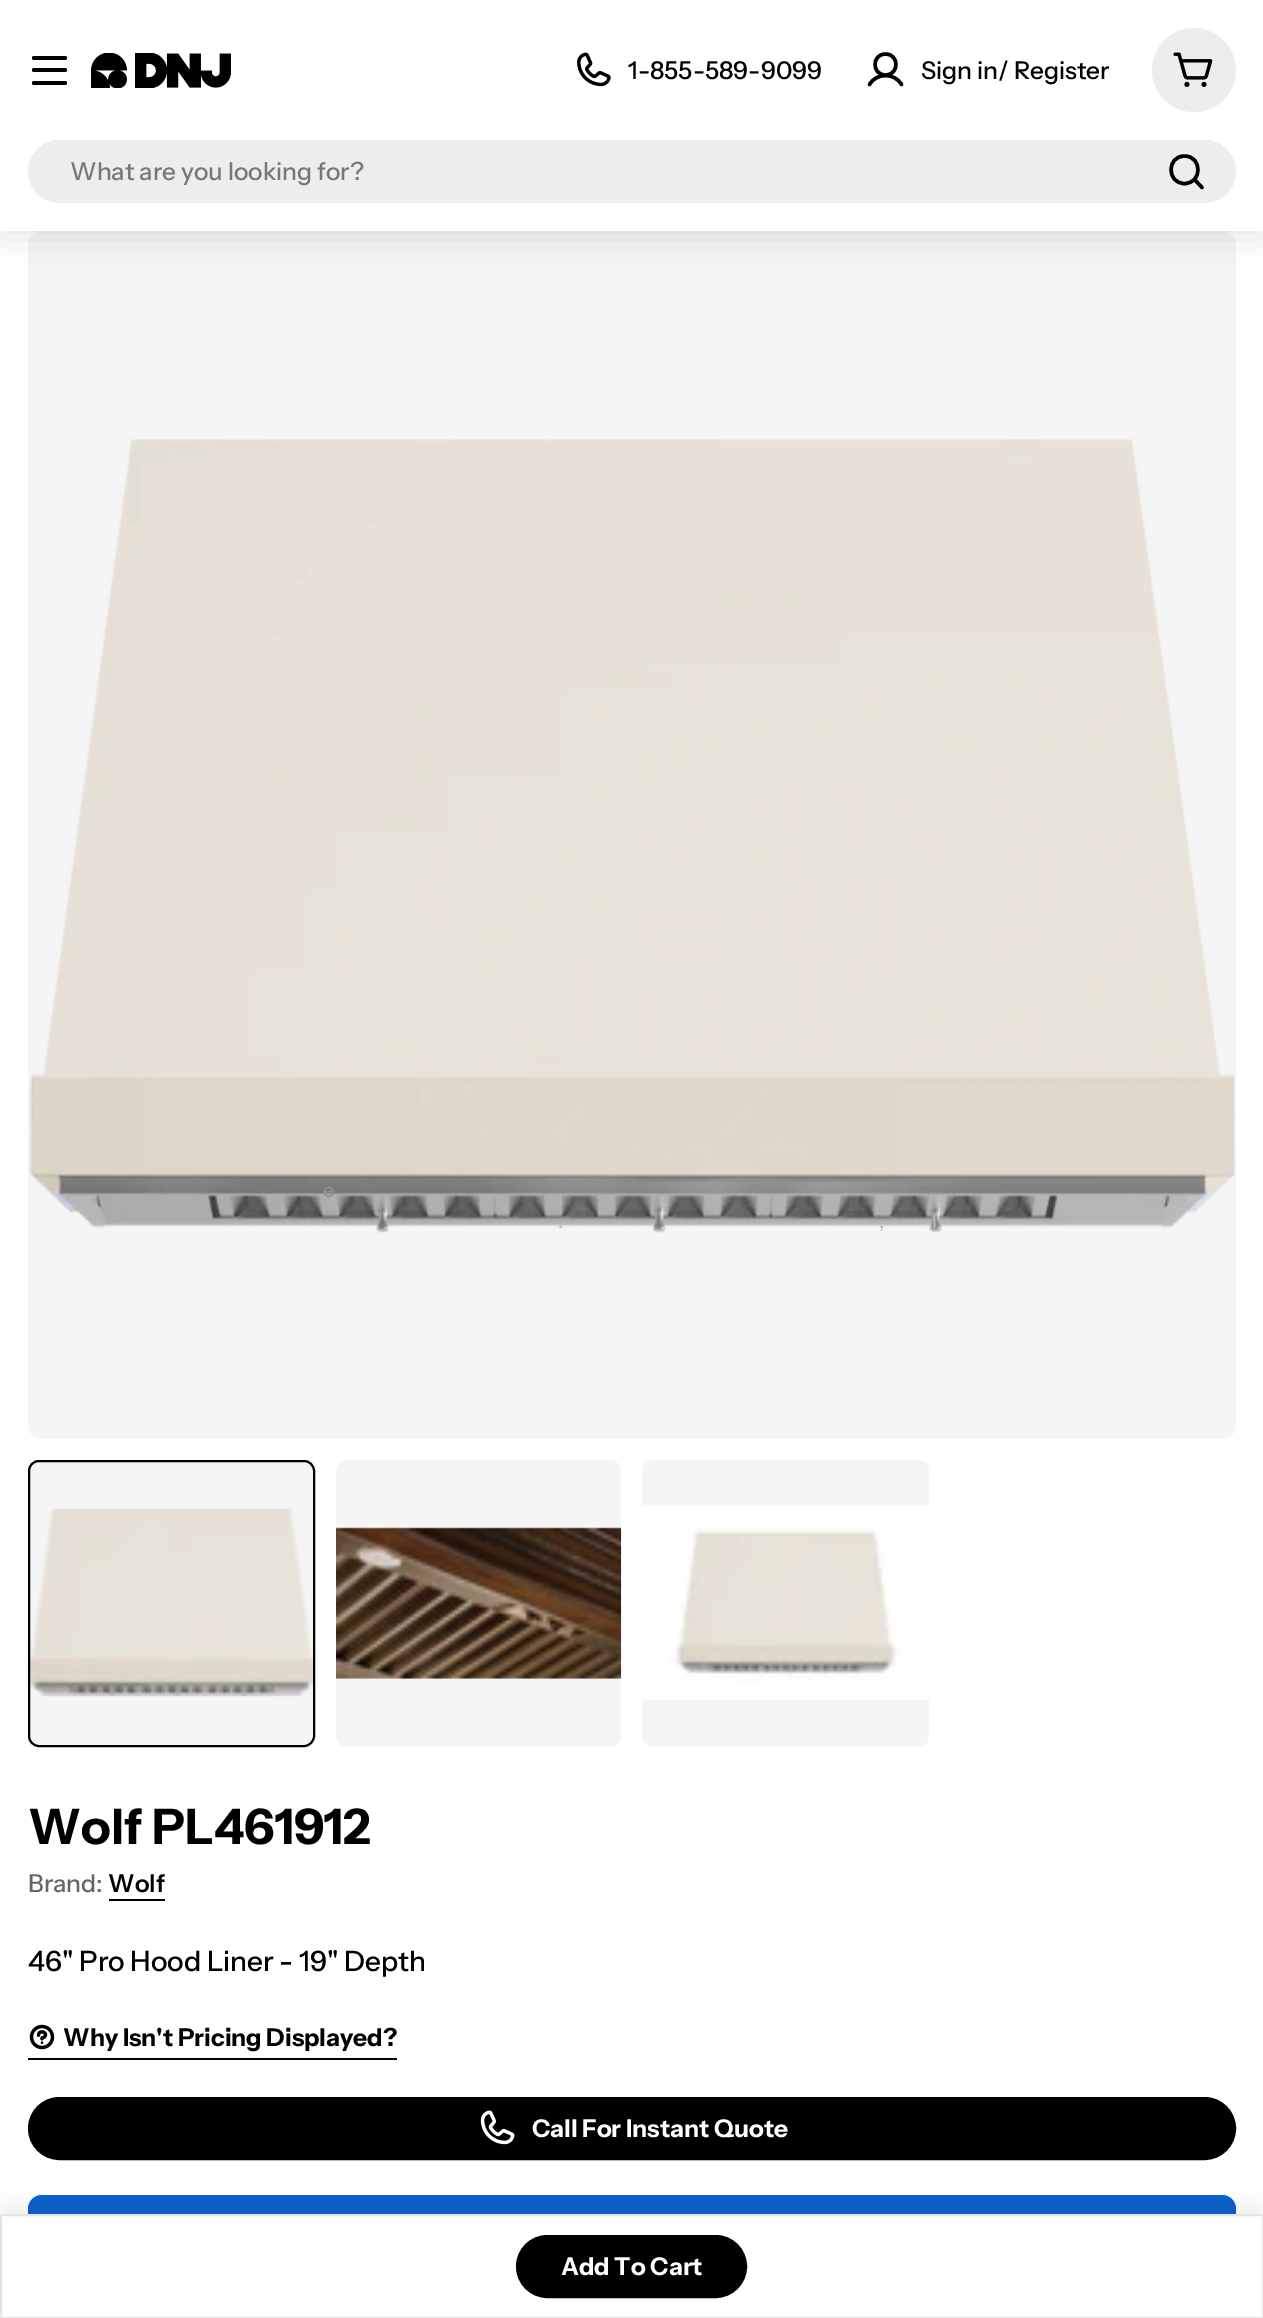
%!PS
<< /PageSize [1263 2318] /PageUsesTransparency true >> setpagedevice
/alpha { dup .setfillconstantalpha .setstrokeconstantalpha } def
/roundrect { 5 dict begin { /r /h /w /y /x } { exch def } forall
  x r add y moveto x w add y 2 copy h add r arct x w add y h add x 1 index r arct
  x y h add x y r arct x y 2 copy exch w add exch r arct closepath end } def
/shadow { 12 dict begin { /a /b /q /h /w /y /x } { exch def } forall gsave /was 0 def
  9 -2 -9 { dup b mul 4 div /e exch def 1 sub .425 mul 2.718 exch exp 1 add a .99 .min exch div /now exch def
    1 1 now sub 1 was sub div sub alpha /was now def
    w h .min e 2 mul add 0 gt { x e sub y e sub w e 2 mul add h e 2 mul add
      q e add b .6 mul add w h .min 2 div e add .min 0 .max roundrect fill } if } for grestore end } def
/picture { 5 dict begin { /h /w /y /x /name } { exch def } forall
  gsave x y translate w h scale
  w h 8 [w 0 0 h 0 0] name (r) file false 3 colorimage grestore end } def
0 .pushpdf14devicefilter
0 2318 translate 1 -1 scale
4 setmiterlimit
1 setgray
0 0 1263 2318 rectfill
0.961 setgray
28 231 1208 1208 14 roundrect fill
0 setgray
0 7 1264 231 0 16 0.1 shadow
1 setgray
0 0 1263 231 rectfill
0 setgray
32 68 35 4 2 roundrect fill
32 56 35 4 2 roundrect fill
32 81 35 4 2 roundrect fill
(img1.rgb) 91 53 140 35 picture
(img2.rgb) 577 52 34 35 picture
/InstrumentSans-Medium [24.5 0 0 -24.5 0 0] selectfont
628 79 moveto (1-855-589-9099) show
3.5 setlinewidth
1 setlinecap
1 setlinejoin
newpath 885.5 75 moveto 899.5 75 899.5 54 885.5 54 curveto 871.5 54 871.5 75 885.5 75 curveto closepath 869.5 84.5 moveto 876.5 72.5 894.5 72.5 901.5 84.5 curveto stroke
921 79 moveto (Sign in/ Register) show
0.929 setgray
newpath 1194 70 42 0 360 arc closepath fill
(img3.rgb) 1173 52 40 35 picture
28 140 1208 63 31.5 roundrect fill
0.467 setgray
70 180 moveto (What are you looking for?) show
0 setgray
newpath 1184.5 183.5 moveto 1202.5 183.5 1202.5 156 1184.5 156 curveto 1166.5 156 1166.5 183.5 1184.5 183.5 curveto closepath 1194.5 179.5 moveto 1202 187.5 lineto stroke
(img4.rgb) 29 439 1206 794 picture
0.961 setgray
28 1460 287 287 11 roundrect fill
(img5.rgb) 30 1508 283 189 picture
0 setgray
2 setlinewidth
0 setlinecap
0 setlinejoin
29 1461 285 285 10 roundrect stroke
0.961 setgray
336 1460 285 287 11 roundrect fill
(img6.rgb) 336 1527 286 152 picture
642 1460 287 287 11 roundrect fill
(img7.rgb) 642 1505 287 195 picture
/InstrumentSans-Medium [20 0 0 -20 0 0] selectfont
0.553 0.561 0.557 setrgbcolor
323 1197 moveto (e) show
0.729 0.729 0.733 setrgbcolor
558 1228 moveto (.) show
879 1228 moveto (,) show
932 1228 moveto (l) show
(img8.rgb) 29 2024 26 26 picture
/InstrumentSans-Bold [24.5 0 0 -24.5 0 0] selectfont
0 setgray
63 2046 moveto (Why Isn't Pricing Displayed?) show
28 2058 369 2 rectfill
/InstrumentSans-Bold [49 0 0 -49 0 0] selectfont
28 1844 moveto (Wolf PL461912) show
/InstrumentSans-Medium [24.5 0 0 -24.5 0 0] selectfont
0.4 setgray
28 1892 moveto (Brand:) show
/InstrumentSans-SemiBold [24.5 0 0 -24.5 0 0] selectfont
0 setgray
108 1892 moveto (Wolf) show
109 1899 56 2 rectfill
/InstrumentSans-Medium [28 0 0 -28 0 0] selectfont
28 1971 moveto (46" Pro Hood Liner - 19" Depth) show
29 2098 1206 61 30.5 roundrect gsave fill grestore
stroke
(img9.rgb) 480 2110 35 35 picture
/InstrumentSans-Bold [24.5 0 0 -24.5 0 0] selectfont
1 setgray
532 2137 moveto (Call For Instant Quote) show
0.043 0.38 0.804 setrgbcolor
28 2195 1208 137 14 roundrect fill
0 setgray
0 2203 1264 105 0 9 0.05 shadow
1 setgray
newpath 1 2215 moveto 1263 2215 lineto 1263 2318 lineto 1 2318 lineto closepath gsave fill grestore
0.898 setgray
stroke
0 setgray
517 2236 229 61 30.5 roundrect gsave fill grestore
stroke
1 setgray
561 2275 moveto (Add To Cart) show
.poppdf14devicefilter showpage
